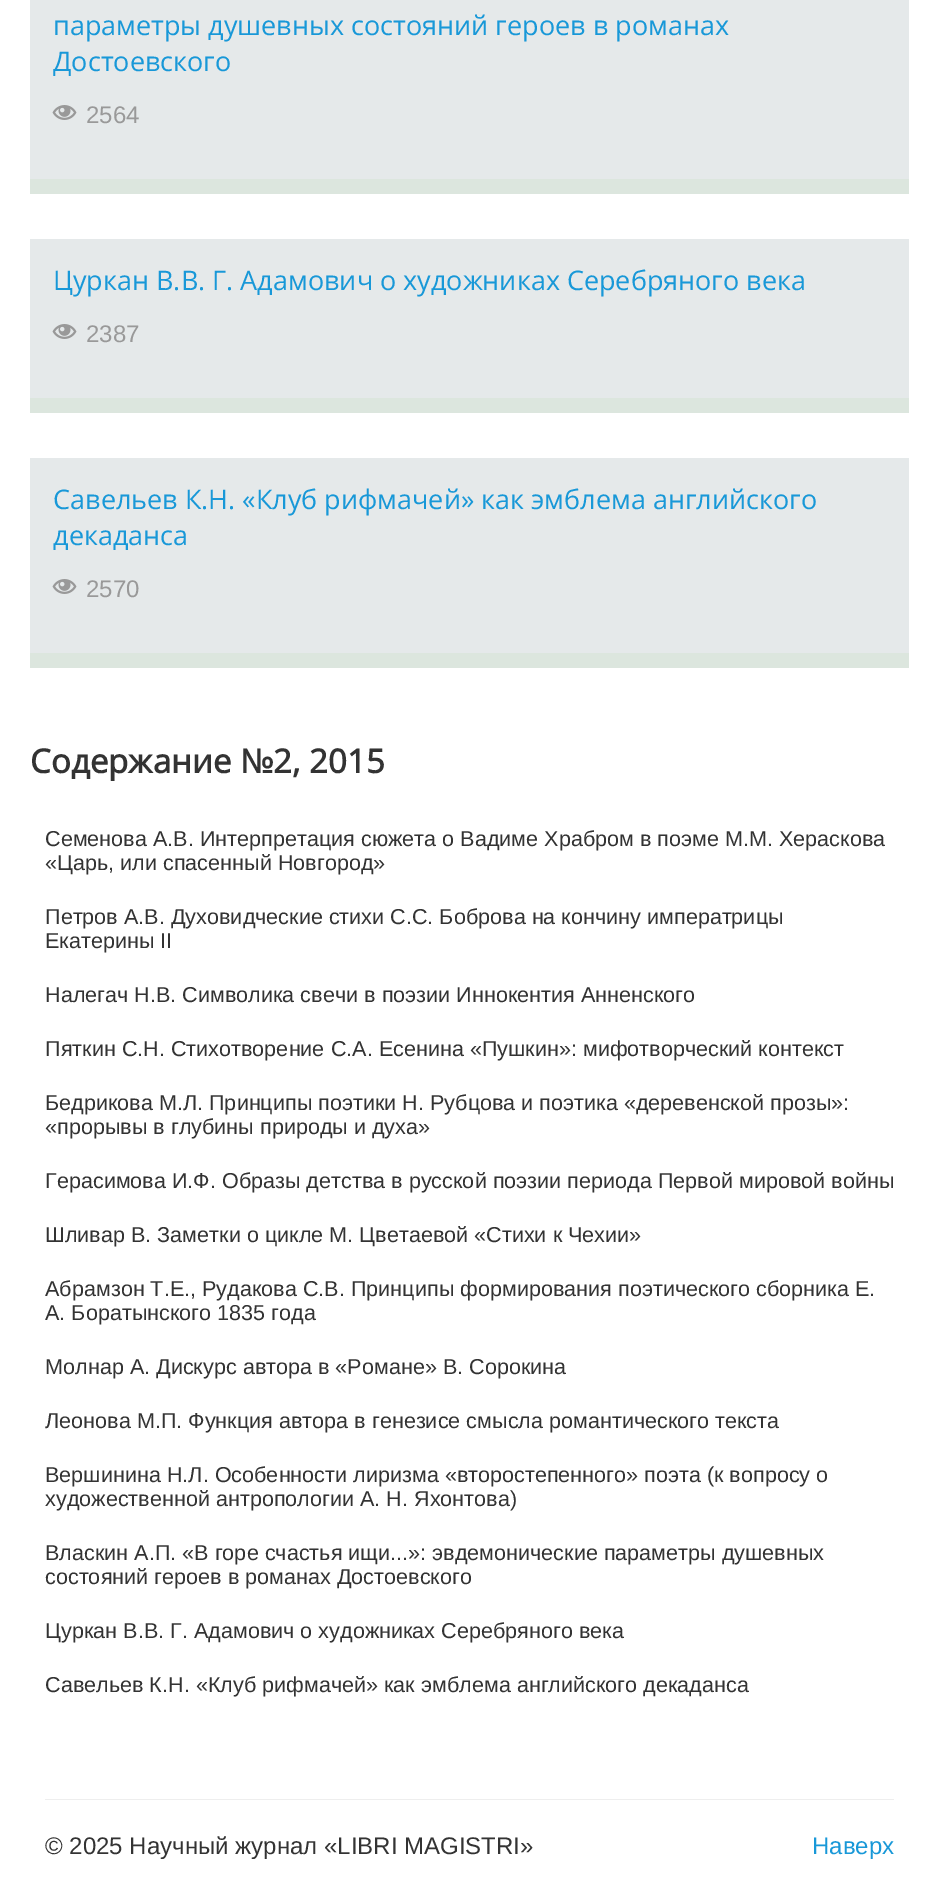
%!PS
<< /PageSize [939 1878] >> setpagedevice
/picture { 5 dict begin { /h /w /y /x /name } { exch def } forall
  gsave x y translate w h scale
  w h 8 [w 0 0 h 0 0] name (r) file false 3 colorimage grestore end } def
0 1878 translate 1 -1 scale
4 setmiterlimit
1 setgray
0 0 939 1878 rectfill
0.898 0.914 0.918 setrgbcolor
30 0 879 179 rectfill
0.863 0.902 0.871 setrgbcolor
30 179 879 15 rectfill
/OpenSans-Regular [27 0 0 -27 0 0] selectfont
0.094 0.596 0.847 setrgbcolor
53 35 moveto (параметры душевных состояний героев в романах) show
53 71 moveto (Достоевского) show
(img1.rgb) 52 105 25 15 picture
/LiberationSans-Regular [24 0 0 -24 0 0] selectfont
0.6 setgray
86 123 moveto (2564) show
0.898 0.914 0.918 setrgbcolor
30 239 879 159 rectfill
0.863 0.902 0.871 setrgbcolor
30 398 879 15 rectfill
/OpenSans-Regular [27 0 0 -27 0 0] selectfont
0.094 0.596 0.847 setrgbcolor
53 290 moveto (Цуркан В.В. Г. Адамович о художниках Серебряного века) show
(img1.rgb) 52 324 25 15 picture
/LiberationSans-Regular [24 0 0 -24 0 0] selectfont
0.6 setgray
86 342 moveto (2387) show
0.898 0.914 0.918 setrgbcolor
30 458 879 195 rectfill
0.863 0.902 0.871 setrgbcolor
30 653 879 15 rectfill
/OpenSans-Regular [27 0 0 -27 0 0] selectfont
0.094 0.596 0.847 setrgbcolor
53 509 moveto (Савельев К.Н. «Клуб рифмачей» как эмблема английского) show
53 545 moveto (декаданса) show
(img1.rgb) 52 579 25 15 picture
/LiberationSans-Regular [24 0 0 -24 0 0] selectfont
0.6 setgray
86 597 moveto (2570) show
/OpenSans-Bold [33 0 0 -33 0 0] selectfont
0.2 setgray
30 773 moveto (Содержание №2, 2015) show
/LiberationSans-Regular [21.6 0 0 -21.6 0 0] selectfont
45 846 moveto (Семенова А.В. Интерпретация сюжета о Вадиме Храбром в поэме М.М. Хераскова) show
45 870 moveto («Царь, или спасенный Новгород») show
45 924 moveto (Петров А.В. Духовидческие стихи С.С. Боброва на кончину императрицы) show
45 948 moveto (Екатерины II) show
45 1002 moveto (Налегач Н.В. Символика свечи в поэзии Иннокентия Анненского) show
45 1056 moveto (Пяткин С.Н. Стихотворение С.А. Есенина «Пушкин»: мифотворческий контекст) show
45 1110 moveto (Бедрикова М.Л. Принципы поэтики Н. Рубцова и поэтика «деревенской прозы»:) show
45 1134 moveto («прорывы в глубины природы и духа») show
45 1188 moveto (Герасимова И.Ф. Образы детства в русской поэзии периода Первой мировой войны) show
45 1242 moveto (Шливар В. Заметки о цикле М. Цветаевой «Стихи к Чехии») show
45 1296 moveto (Абрамзон Т.Е., Рудакова С.В. Принципы формирования поэтического сборника Е.) show
45 1320 moveto (А. Боратынского 1835 года) show
45 1374 moveto (Молнар А. Дискурс автора в «Романе» В. Сорокина) show
45 1428 moveto (Леонова М.П. Функция автора в генезисе смысла романтического текста) show
45 1482 moveto (Вершинина Н.Л. Особенности лиризма «второстепенного» поэта \(к вопросу о) show
45 1506 moveto (художественной антропологии А. Н. Яхонтова\)) show
45 1560 moveto (Власкин А.П. «В горе счастья ищи...»: эвдемонические параметры душевных) show
45 1584 moveto (состояний героев в романах Достоевского) show
45 1638 moveto (Цуркан В.В. Г. Адамович о художниках Серебряного века) show
45 1692 moveto (Савельев К.Н. «Клуб рифмачей» как эмблема английского декаданса) show
0.933 setgray
45 1799 849 1 rectfill
/LiberationSans-Regular [24 0 0 -24 0 0] selectfont
0.2 setgray
45 1854 moveto (© 2025 Научный журнал «LIBRI MAGISTRI») show
0.094 0.596 0.847 setrgbcolor
812 1854 moveto (Наверх) show
showpage
